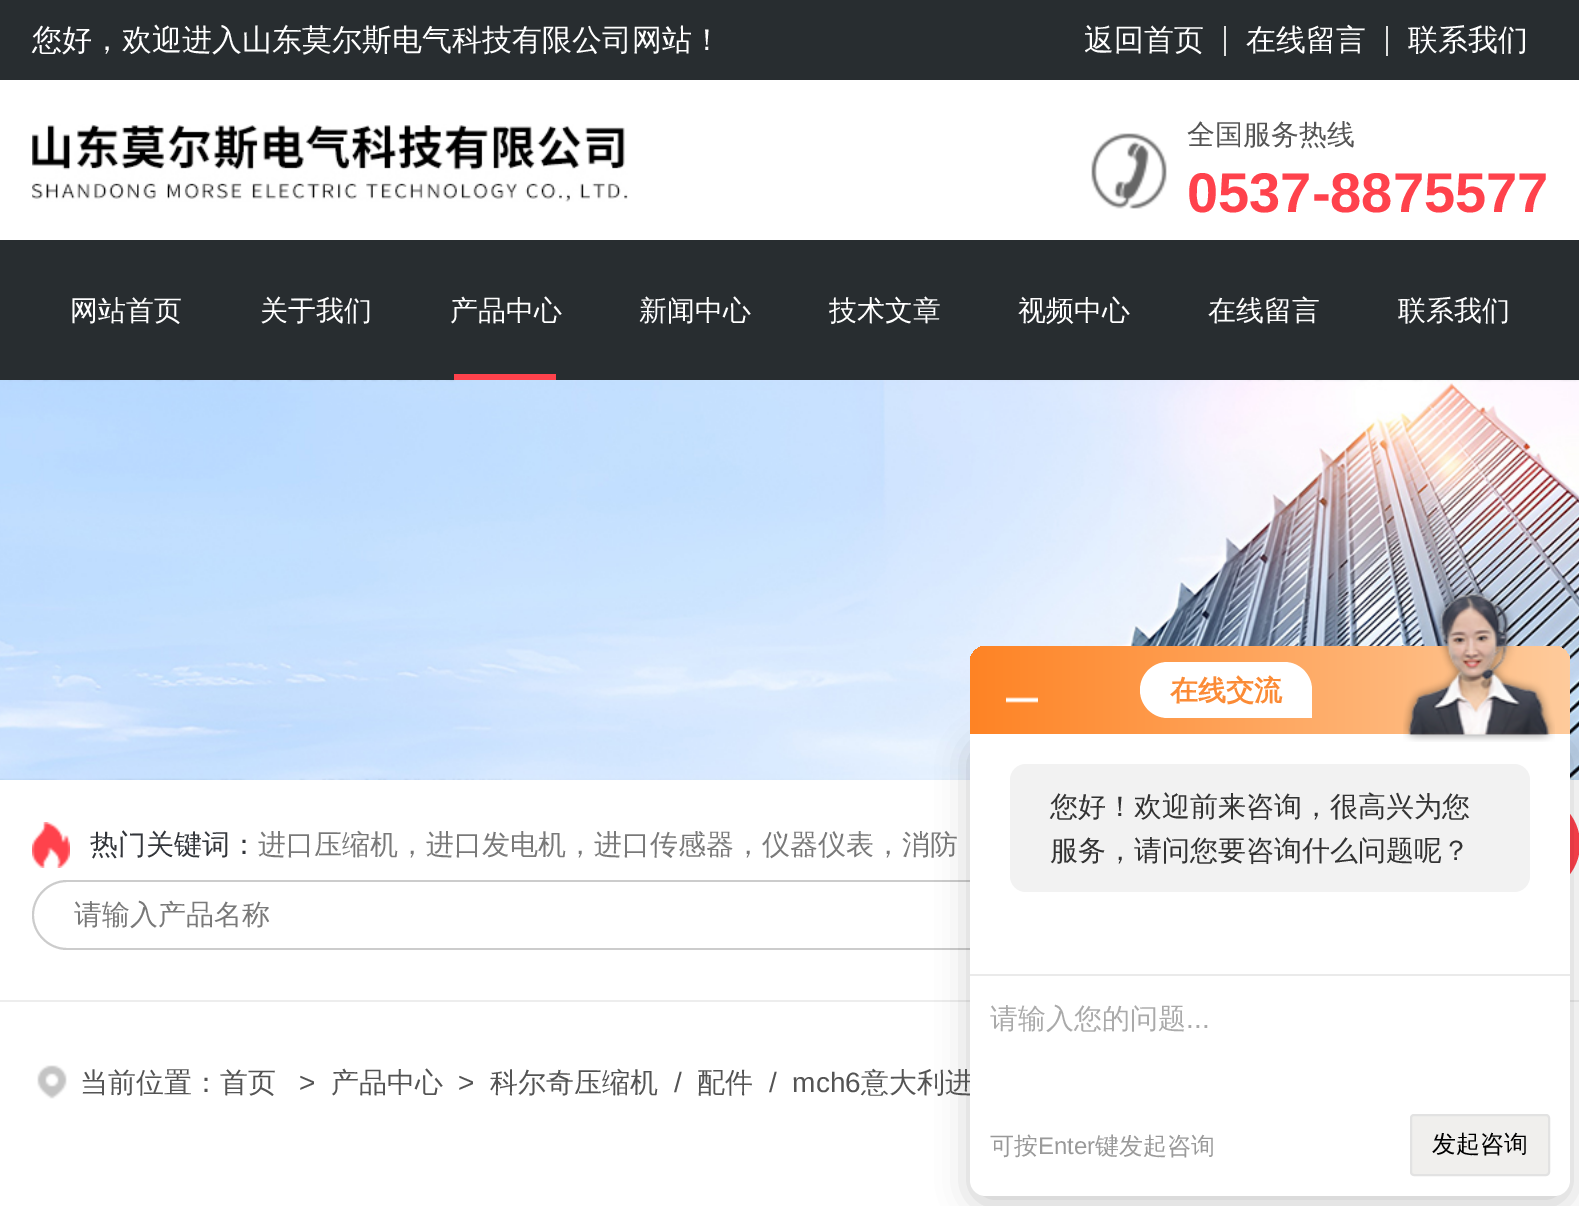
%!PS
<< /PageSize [1579 1206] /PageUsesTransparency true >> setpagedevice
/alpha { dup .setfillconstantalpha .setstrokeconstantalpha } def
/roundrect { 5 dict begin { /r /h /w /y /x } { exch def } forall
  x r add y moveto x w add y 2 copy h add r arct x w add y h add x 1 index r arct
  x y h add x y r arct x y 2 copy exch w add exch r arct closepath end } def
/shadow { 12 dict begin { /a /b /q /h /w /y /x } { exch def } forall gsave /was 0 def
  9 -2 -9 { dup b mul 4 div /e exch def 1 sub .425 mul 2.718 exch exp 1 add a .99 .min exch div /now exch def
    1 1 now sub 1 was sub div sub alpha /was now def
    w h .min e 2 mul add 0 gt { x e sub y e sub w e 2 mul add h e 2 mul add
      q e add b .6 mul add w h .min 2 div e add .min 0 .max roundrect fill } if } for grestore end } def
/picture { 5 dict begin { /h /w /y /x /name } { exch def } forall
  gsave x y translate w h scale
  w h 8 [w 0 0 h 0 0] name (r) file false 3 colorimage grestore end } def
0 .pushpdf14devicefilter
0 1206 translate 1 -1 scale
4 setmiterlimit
1 setgray
0 0 1579 1206 rectfill
0.157 0.176 0.188 setrgbcolor
0 0 1579 80 rectfill
/WenQuanYiZenHei-Medium [30 0 0 -30 0 0] selectfont
1 setgray
32 50 moveto (您好，欢迎进入山东莫尔斯电气科技有限公司网站！) show
1084 50 moveto (返回首页) show
0.875 setgray
1224 26 2 30 rectfill
1 setgray
1246 50 moveto (在线留言) show
0.875 setgray
1386 26 2 30 rectfill
1 setgray
1408 50 moveto (联系我们) show
(img1.rgb) 32 124 596 78 picture
(img2.rgb) 1091 133 76 76 picture
/WenQuanYiZenHei-Medium [28 0 0 -28 0 0] selectfont
0.329 setgray
1187 144 moveto (全国服务热线) show
/LiberationSans-Bold [56 0 0 -56 0 0] selectfont
1 0.259 0.298 setrgbcolor
1187 212 moveto (0537-8875577) show
0.157 0.176 0.188 setrgbcolor
0 240 1579 140 rectfill
/WenQuanYiZenHei-Medium [28 0 0 -28 0 0] selectfont
1 setgray
70 320 moveto (网站首页) show
260 320 moveto (关于我们) show
450 320 moveto (产品中心) show
1 0.259 0.298 setrgbcolor
454 374 102 6 rectfill
1 setgray
639 320 moveto (新闻中心) show
829 320 moveto (技术文章) show
1018 320 moveto (视频中心) show
1208 320 moveto (在线留言) show
1398 320 moveto (联系我们) show
(img3.rgb) 0 380 1579 400 picture
0.929 setgray
0 1000 1579 2 rectfill
(img4.rgb) 32 822 38 46 picture
0.196 0.208 0.227 setrgbcolor
90 854 moveto (热门关键词：) show
0.475 setgray
258 854 moveto (进口压缩机，进口发电机，进口传感器，仪器仪表，消防) show
0.8 setgray
newpath 67 880 moveto 1418 880 lineto 1418 950 lineto 67 950 lineto 48 950 32 934 32 915 curveto 32 896 48 880 67 880 curveto closepath 67 882 moveto 1418 882 lineto 1418 948 lineto 67 948 lineto 49 948 34 933 34 915 curveto 34 897 49 882 67 882 curveto closepath eofill
0.475 setgray
74 924 moveto (请输入产品名称) show
1 0.259 0.298 setrgbcolor
newpath 1530 844 50 0 360 arc closepath fill
0 setgray
970 742 600 462 16 16 0.2 shadow
gsave newpath 986 646 moveto 1554 646 lineto 1563 646 1570 653 1570 662 curveto 1570 734 lineto 970 734 lineto 970 662 lineto 970 653 977 646 986 646 curveto closepath clip newpath
<< /ShadingType 2 /ColorSpace /DeviceRGB /Coords [970 690 1570 690] /Extend [true true] /Function << /FunctionType 2 /Domain [0 1] /C0 [1 0.514 0.141] /C1 [0.996 0.796 0.612] /N 1 >> >> shfill grestore
(img5.rgb) 1006 697 32 6 picture
1 setgray
newpath 1168 662 moveto 1284 662 lineto 1299.5 662 1312 674.5 1312 690 curveto 1312 718 lineto 1168 718 lineto 1152.5 718 1140 705.5 1140 690 curveto 1140 674.5 1152.5 662 1168 662 curveto closepath fill
/WenQuanYiZenHei-Bold [28 0 0 -28 0 0] selectfont
0.984 0.545 0.212 setrgbcolor
1170 700 moveto (在线交流) show
/WenQuanYiZenHei-Medium [28 0 0 -28 0 0] selectfont
0.329 setgray
861 1092 moveto (意大利进) show
1 setgray
newpath 970 734 moveto 1570 734 lineto 1570 1180 lineto 1570 1189 1563 1196 1554 1196 curveto 986 1196 lineto 977 1196 970 1189 970 1180 curveto closepath fill
(img6.rgb) 1403 587 152 155 picture
0.949 setgray
1010 764 520 128 16 roundrect fill
0.2 setgray
1050 816 moveto (您好！欢迎前来咨询，很高兴为您) show
1050 860 moveto (服务，请问您要咨询什么问题呢？) show
0.918 setgray
970 974 600 2 rectfill
0.667 setgray
990 1028 moveto (请输入您的问题) show
/LiberationSans-Regular [28 0 0 -28 0 0] selectfont
1186 1028 moveto (...) show
/WenQuanYiZenHei-Medium [24 0 0 -24 0 0] selectfont
0.6 setgray
990 1154 moveto (可按) show
/LiberationSans-Regular [24 0 0 -24 0 0] selectfont
1038 1154 moveto (Enter) show
/WenQuanYiZenHei-Medium [24 0 0 -24 0 0] selectfont
1095 1154 moveto (键发起咨询) show
0.941 0.937 0.929 setrgbcolor
1411 1115 138 60 3 roundrect gsave fill grestore
0.886 setgray
2 setlinewidth
stroke
0 setgray
1432 1152 moveto (发起咨询) show
(img7.rgb) 37 1065 30 34 picture
/WenQuanYiZenHei-Medium [28 0 0 -28 0 0] selectfont
0.329 setgray
80 1092 moveto (当前位置：首页) show
/LiberationSans-Regular [28 0 0 -28 0 0] selectfont
299 1092 moveto (>) show
/WenQuanYiZenHei-Medium [28 0 0 -28 0 0] selectfont
331 1092 moveto (产品中心) show
/LiberationSans-Regular [28 0 0 -28 0 0] selectfont
458 1092 moveto (>) show
/WenQuanYiZenHei-Medium [28 0 0 -28 0 0] selectfont
490 1092 moveto (科尔奇压缩机) show
/LiberationSans-Regular [28 0 0 -28 0 0] selectfont
674 1092 moveto (/) show
/WenQuanYiZenHei-Medium [28 0 0 -28 0 0] selectfont
697 1092 moveto (配件) show
/LiberationSans-Regular [28 0 0 -28 0 0] selectfont
769 1092 moveto (/  mch6) show
.poppdf14devicefilter showpage
